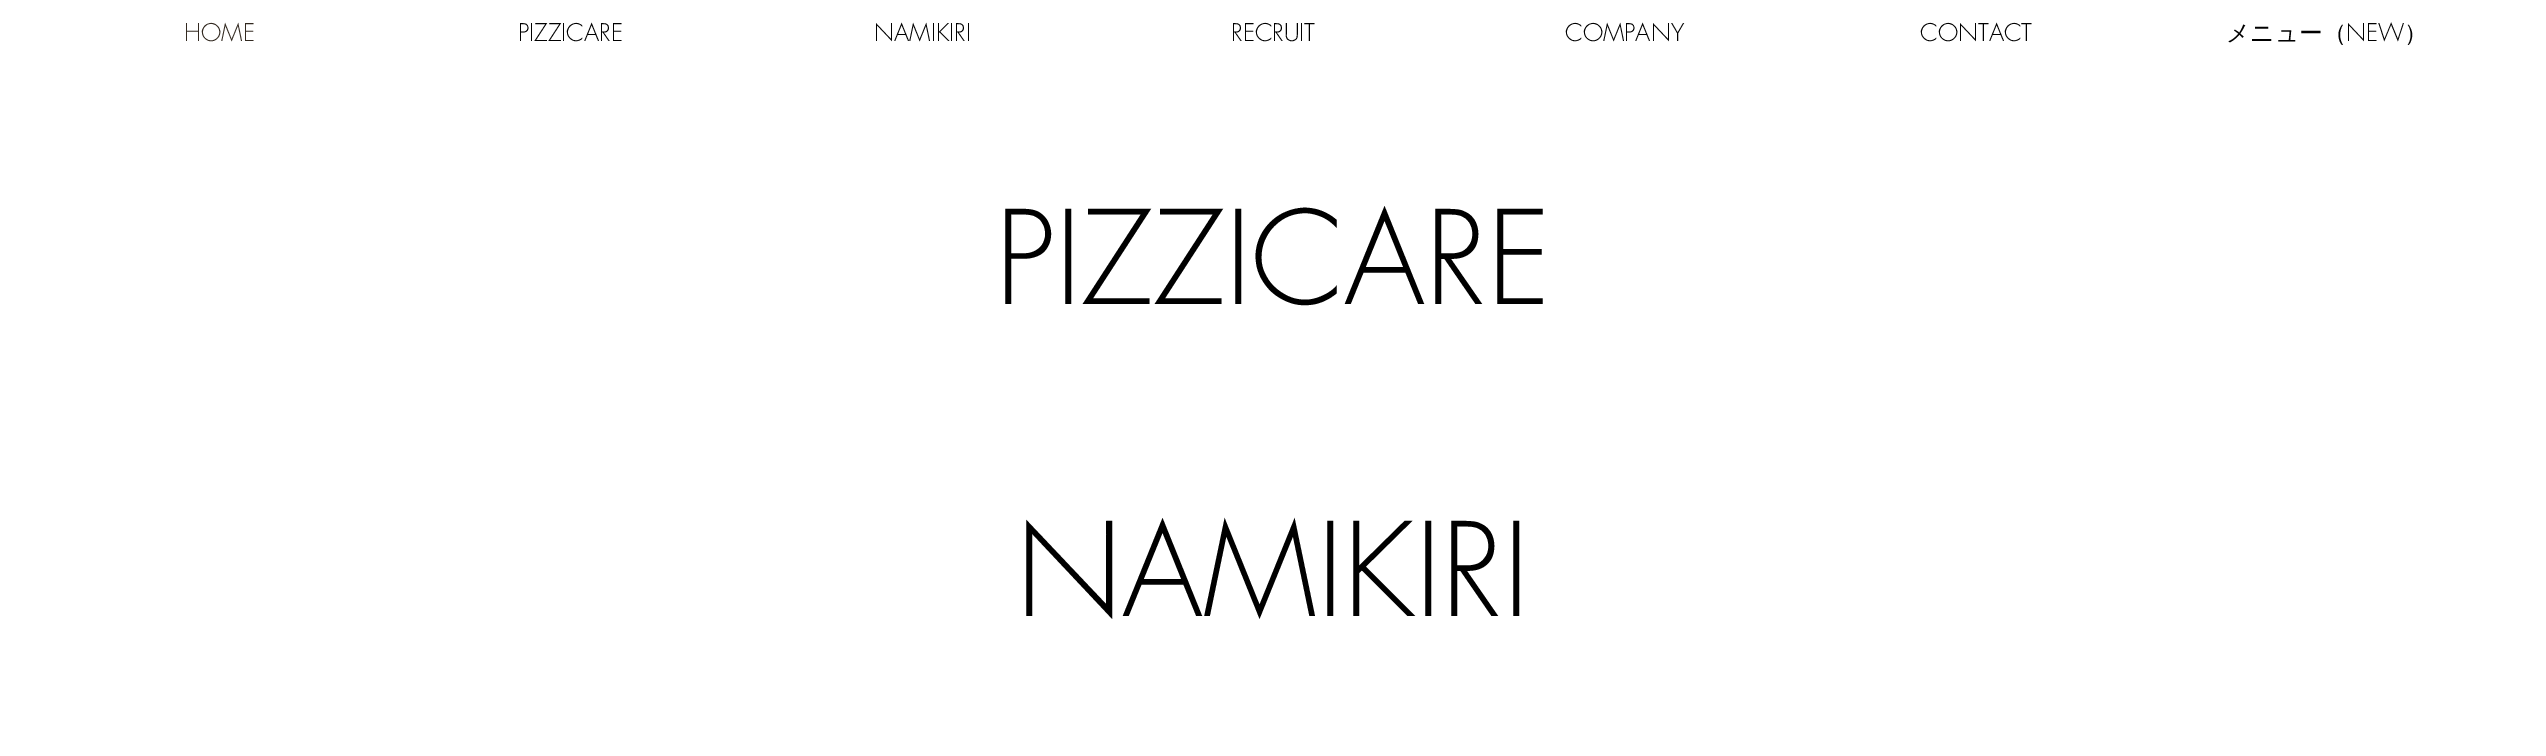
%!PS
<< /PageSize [2546 756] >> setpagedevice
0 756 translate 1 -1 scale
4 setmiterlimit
1 setgray
0 0 2546 756 rectfill
/futura-Light [23.75 0 0 -23.75 0 0] selectfont
0.196 0.161 0.125 setrgbcolor
184 41 moveto (HOME) show
0 setgray
518 41 moveto (PIZZICARE) show
874 41 moveto (NAMIKIRI) show
1231 41 moveto (RECRUIT) show
1565 41 moveto (COMPANY) show
1920 41 moveto (CONTACT) show
/WenQuanYiZenHei-Medium [23.75 0 0 -23.75 0 0] selectfont
2226 41 moveto (メニュー（) show
/futura-Light [23.75 0 0 -23.75 0 0] selectfont
2346 41 moveto (NEW) show
/WenQuanYiZenHei-Medium [23.75 0 0 -23.75 0 0] selectfont
2404 41 moveto (）) show
/futura-Light [126.25 0 0 -126.25 0 0] selectfont
995 304 moveto (PIZZICARE) show
1016 616 moveto (NAMIKIRI) show
showpage
